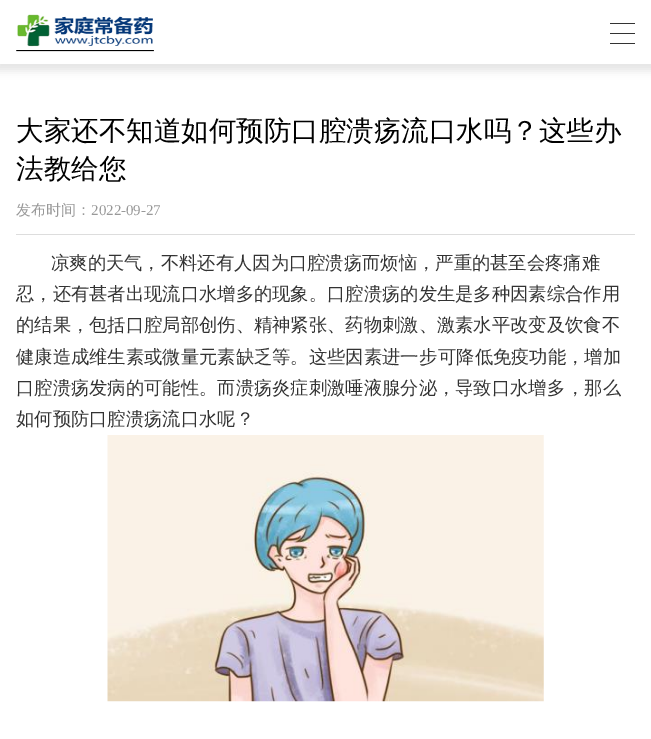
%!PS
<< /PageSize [651 739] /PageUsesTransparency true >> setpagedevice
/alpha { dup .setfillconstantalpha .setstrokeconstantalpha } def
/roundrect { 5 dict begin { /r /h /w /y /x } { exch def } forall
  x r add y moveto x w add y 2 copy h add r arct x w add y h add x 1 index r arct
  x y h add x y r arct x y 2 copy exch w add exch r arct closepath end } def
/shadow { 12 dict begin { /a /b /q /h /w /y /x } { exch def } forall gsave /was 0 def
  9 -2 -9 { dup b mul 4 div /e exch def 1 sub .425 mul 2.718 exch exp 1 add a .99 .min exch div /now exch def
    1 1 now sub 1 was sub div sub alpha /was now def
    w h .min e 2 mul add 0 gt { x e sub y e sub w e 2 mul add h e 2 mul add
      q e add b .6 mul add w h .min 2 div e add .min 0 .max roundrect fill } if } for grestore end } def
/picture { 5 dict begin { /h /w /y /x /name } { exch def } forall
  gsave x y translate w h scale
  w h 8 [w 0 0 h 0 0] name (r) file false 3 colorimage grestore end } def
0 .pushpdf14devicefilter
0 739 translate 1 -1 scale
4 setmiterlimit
1 setgray
0 0 651 739 rectfill
0 setgray
-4 0 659 71 0 4 0.1 shadow
1 setgray
0 0 651 64 rectfill
(img1.rgb) 16 14 138 38 picture
0.2 setgray
610 23 25 1 rectfill
610 33 25 1 rectfill
610 43 25 1 rectfill
/WenQuanYiZenHei-Medium [27.5 0 0 -27.5 0 0] selectfont
0 setgray
16 140 moveto (大家还不知道如何预防口腔溃疡流口水吗？这些办) show
16 178 moveto (法教给您) show
/WenQuanYiZenHei-Medium [15 0 0 -15 0 0] selectfont
0.6 setgray
16 215 moveto (发布时间：) show
/LiberationSerif-Regular [15 0 0 -15 0 0] selectfont
91 215 moveto (2022-09-27) show
0.867 setgray
16 234 619 1 rectfill
/WenQuanYiZenHei-Medium [18.3 0 0 -18.3 0 0] selectfont
0.2 setgray
51 269 moveto (凉爽的天气，不料还有人因为口腔溃疡而烦恼，严重的甚至会疼痛难) show
16 300 moveto (忍，还有甚者出现流口水增多的现象。口腔溃疡的发生是多种因素综合作用) show
16 331 moveto (的结果，包括口腔局部创伤、精神紧张、药物刺激、激素水平改变及饮食不) show
16 363 moveto (健康造成维生素或微量元素缺乏等。这些因素进一步) show
438 363 moveto (可降低免疫功能，增加) show
16 394 moveto (口腔溃疡发病的可能性。而溃疡炎症刺激唾液腺分泌，导致口水增多) show
566 394 moveto (，那么) show
16 425 moveto (如何预防口腔溃疡流口水呢？) show
(img2.rgb) 107 435 437 267 picture
.poppdf14devicefilter showpage
